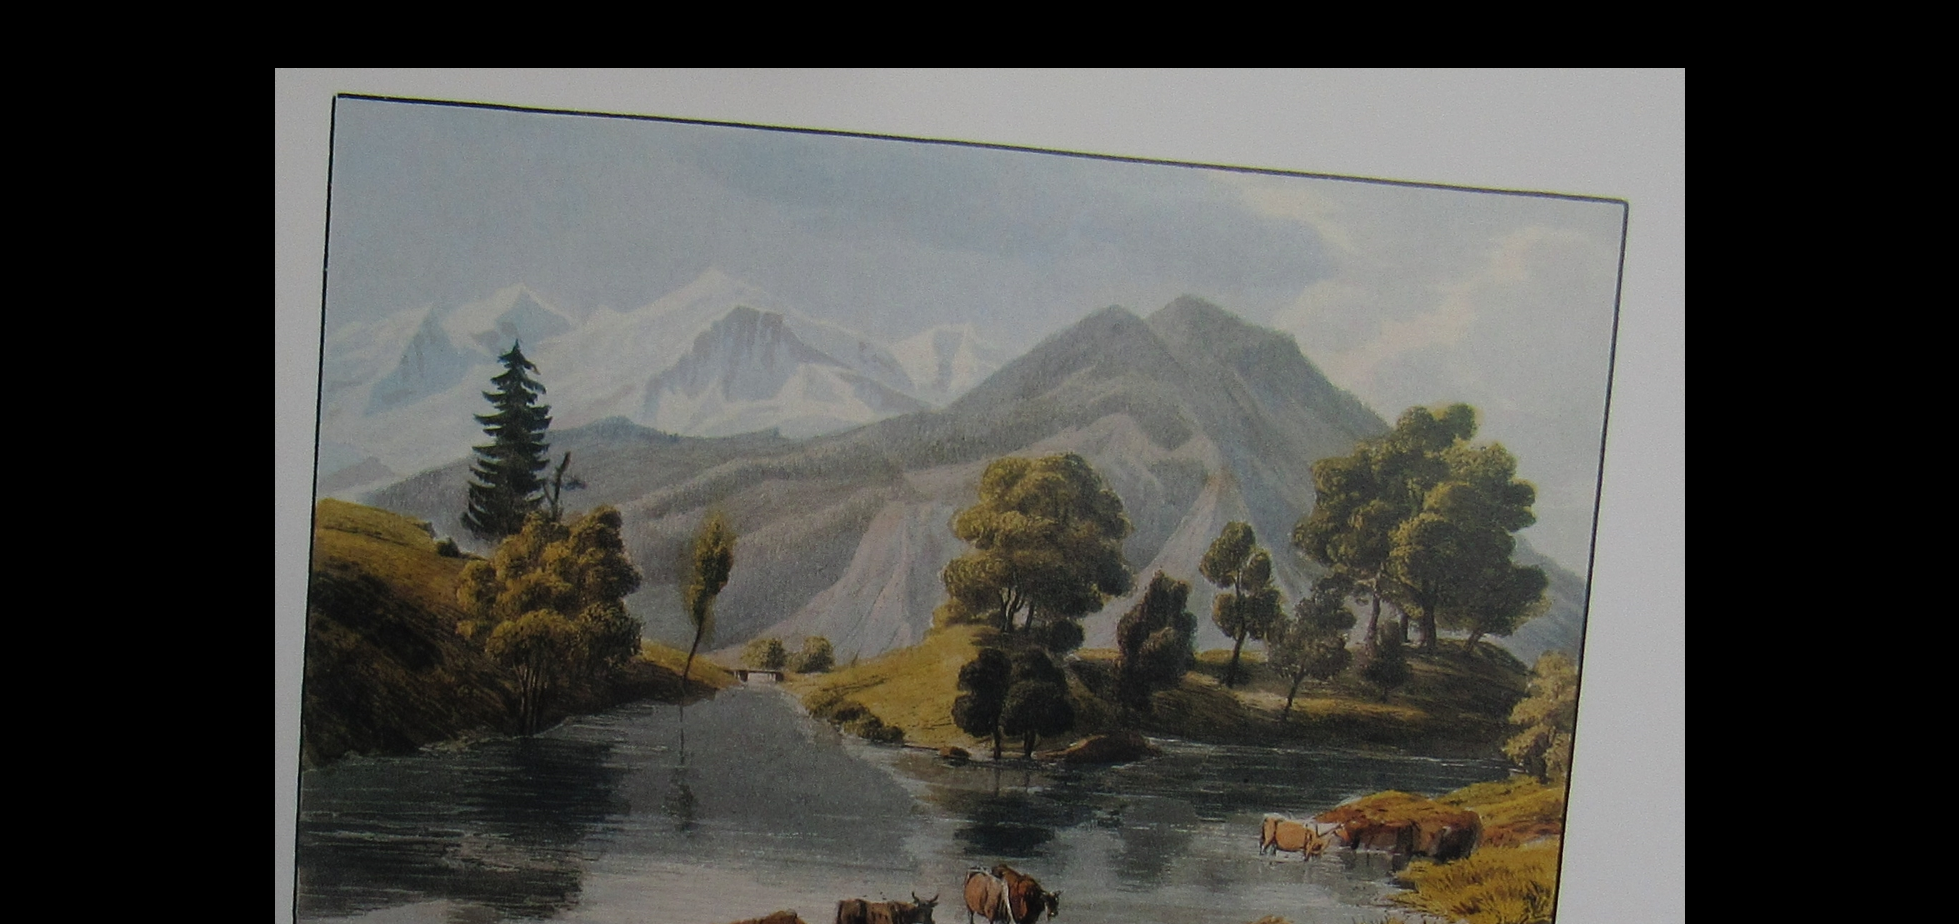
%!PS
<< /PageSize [1959 924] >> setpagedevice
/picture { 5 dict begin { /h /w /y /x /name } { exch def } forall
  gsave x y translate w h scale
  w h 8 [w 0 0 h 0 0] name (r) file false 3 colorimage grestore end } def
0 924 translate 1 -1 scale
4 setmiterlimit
0 setgray
0 0 1959 924 rectfill
(img1.rgb) 275 68 1410 856 picture
showpage
